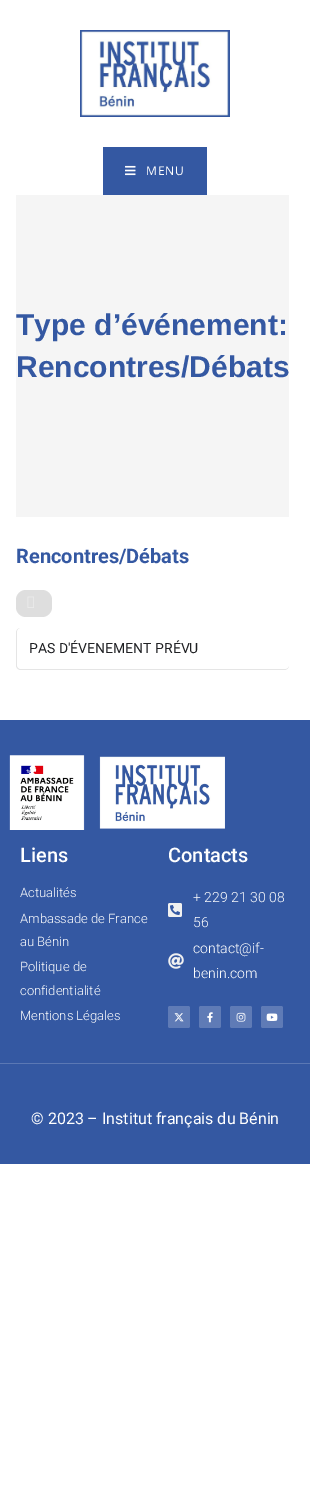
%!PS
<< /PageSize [310 1508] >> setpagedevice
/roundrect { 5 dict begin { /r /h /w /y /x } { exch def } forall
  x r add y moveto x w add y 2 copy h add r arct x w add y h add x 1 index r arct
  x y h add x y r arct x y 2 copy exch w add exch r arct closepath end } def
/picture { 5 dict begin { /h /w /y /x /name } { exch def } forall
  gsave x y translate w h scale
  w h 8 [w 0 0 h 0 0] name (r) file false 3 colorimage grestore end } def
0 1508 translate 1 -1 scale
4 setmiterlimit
1 setgray
0 0 310 1508 rectfill
(img1.rgb) 80 30 150 87 picture
0.204 0.345 0.635 setrgbcolor
103 147 104 48 rectfill
(img2.rgb) 125 165 11 11 picture
/OpenSans-Regular [12 0 0 -12 0 0] selectfont
1 setgray
146 175 moveto 1 0 (MENU) ashow
0.961 setgray
16 195 273 322 rectfill
/LiberationSans-Bold [30 0 0 -30 0 0] selectfont
0.204 0.345 0.635 setrgbcolor
16 335 moveto (Type d’événement:) show
16 377 moveto (Rencontres/Débats) show
/Roboto-Bold [20 0 0 -20 0 0] selectfont
16 563 moveto (Rencontres/Débats) show
0.871 setgray
16 590 36 27 10 roundrect fill
(img3.rgb) 27 596 7 12 picture
0.898 setgray
newpath 21 628 moveto 18 628 16 630 16 633 curveto 16 665 lineto 16 668 18 670 21 670 curveto 284 670 lineto 287 670 289 668 289 665 curveto 289 667 287 669 284 669 curveto 21 669 lineto 19 669 17 667 17 665 curveto 17 633 lineto 17 630 19 628 21 628 curveto closepath fill
1 setgray
newpath 21 628 moveto 284 628 lineto 287 628 289 630 289 633 curveto 289 665 lineto 289 667 287 669 284 669 curveto 21 669 lineto 19 669 17 667 17 665 curveto 17 633 lineto 17 630 19 628 21 628 curveto closepath fill
/Roboto-Regular [14 0 0 -14 0 0] selectfont
0.125 0.129 0.141 setrgbcolor
29 653 moveto (PAS D'ÉVENEMENT PRÉVU) show
0.204 0.345 0.635 setrgbcolor
0 720 310 343 rectfill
(img4.rgb) 9 755 216 75 picture
/Roboto-Medium [20 0 0 -20 0 0] selectfont
1 setgray
20 862 moveto (Liens) show
/Roboto-Light [13 0 0 -13 0 0] selectfont
20 897 moveto (Actualités) show
20 923 moveto (Ambassade de France) show
20 946 moveto (au Bénin) show
20 971 moveto (Politique de) show
20 995 moveto (confidentialité) show
20 1020 moveto (Mentions Légales) show
/Roboto-Medium [20 0 0 -20 0 0] selectfont
168 862 moveto (Contacts) show
(img5.rgb) 168 903 14 14 picture
/Roboto-Light [14 0 0 -14 0 0] selectfont
193 902 moveto (+ 229 21 30 08) show
193 927 moveto (56) show
(img6.rgb) 168 953 16 16 picture
193 953 moveto (contact@if-) show
193 978 moveto (benin.com) show
0.373 0.482 0.714 setrgbcolor
168 1006 22 22 2 roundrect fill
(img7.rgb) 174 1013 10 9 picture
199 1006 22 22 2 roundrect fill
(img8.rgb) 207 1012 6 11 picture
230 1006 22 22 2 roundrect fill
(img9.rgb) 236 1012 10 10 picture
261 1006 22 22 2 roundrect fill
(img10.rgb) 266 1013 12 8 picture
0.204 0.345 0.635 setrgbcolor
0 1064 310 100 rectfill
0.357 0.471 0.706 setrgbcolor
0 1063 310 1 rectfill
/Roboto-Regular [16 0 0 -16 0 0] selectfont
1 setgray
31 1124 moveto (© 2023 – Institut français du Bénin) show
showpage
